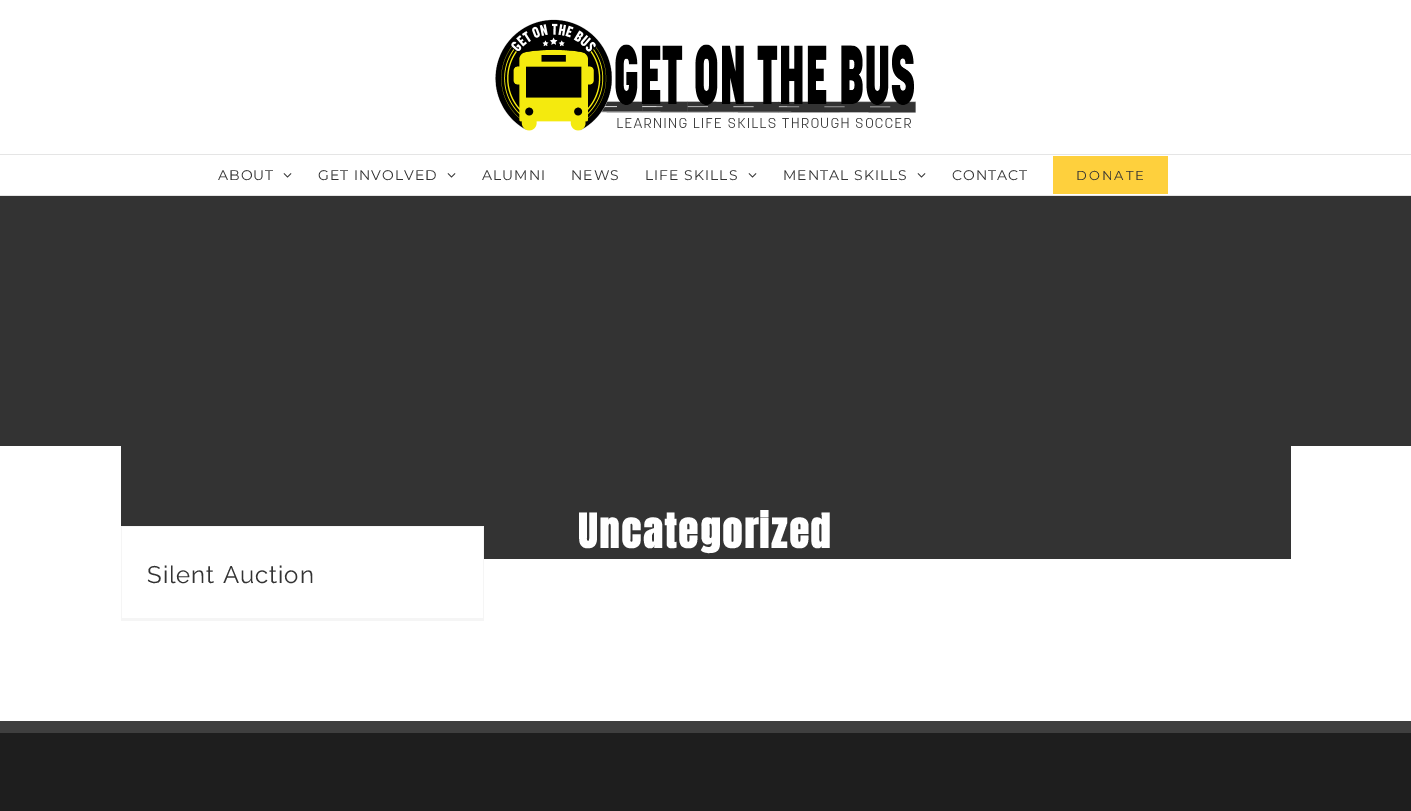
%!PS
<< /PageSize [1411 811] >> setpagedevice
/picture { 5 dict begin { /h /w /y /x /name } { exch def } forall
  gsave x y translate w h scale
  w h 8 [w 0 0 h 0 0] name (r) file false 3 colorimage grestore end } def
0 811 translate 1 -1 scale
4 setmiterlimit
1 setgray
0 0 1411 811 rectfill
0.898 setgray
0 154 1411 1 rectfill
(img1.rgb) 495 19 421 112 picture
0 195 1411 1 rectfill
/Montserrat-Regular [14 0 0 -14 0 0] selectfont
0.2 setgray
218 180 moveto 1 0 (ABOUT) ashow
(img2.rgb) 283 173 9 5 picture
318 180 moveto 1 0 (GET INVOLVED) ashow
(img2.rgb) 447 173 9 5 picture
482 180 moveto 1 0 (ALUMNI) ashow
571 180 moveto 1 0 (NEWS) ashow
645 180 moveto 1 0 (LIFE SKILLS) ashow
(img2.rgb) 748 173 9 5 picture
783 180 moveto 1 0 (MENTAL SKILLS) ashow
(img2.rgb) 917 173 9 5 picture
952 180 moveto 1 0 (CONTACT) ashow
0.996 0.816 0.239 setrgbcolor
1053 156 115 38 rectfill
/Montserrat-Regular [13 0 0 -13 0 0] selectfont
0.2 setgray
1076 180 moveto 2 0 (DONATE) ashow
0 196 1411 250 rectfill
121 446 1170 113 rectfill
/Anton-Bold [40 0 0 -40 0 0] selectfont
1 setgray
578 548 moveto 2 0 (Uncategorized) ashow
122 527 361 32 rectfill
0.961 setgray
121 526 363 1 rectfill
483 526 1 95 rectfill
121 618 363 3 rectfill
121 526 1 95 rectfill
/Raleway-Regular [24 0 0 -24 0 0] selectfont
0.2 setgray
147 583 moveto 1 0 (Silent Auction) ashow
0.118 setgray
0 733 1411 78 rectfill
0.247 setgray
0 721 1411 12 rectfill
showpage
